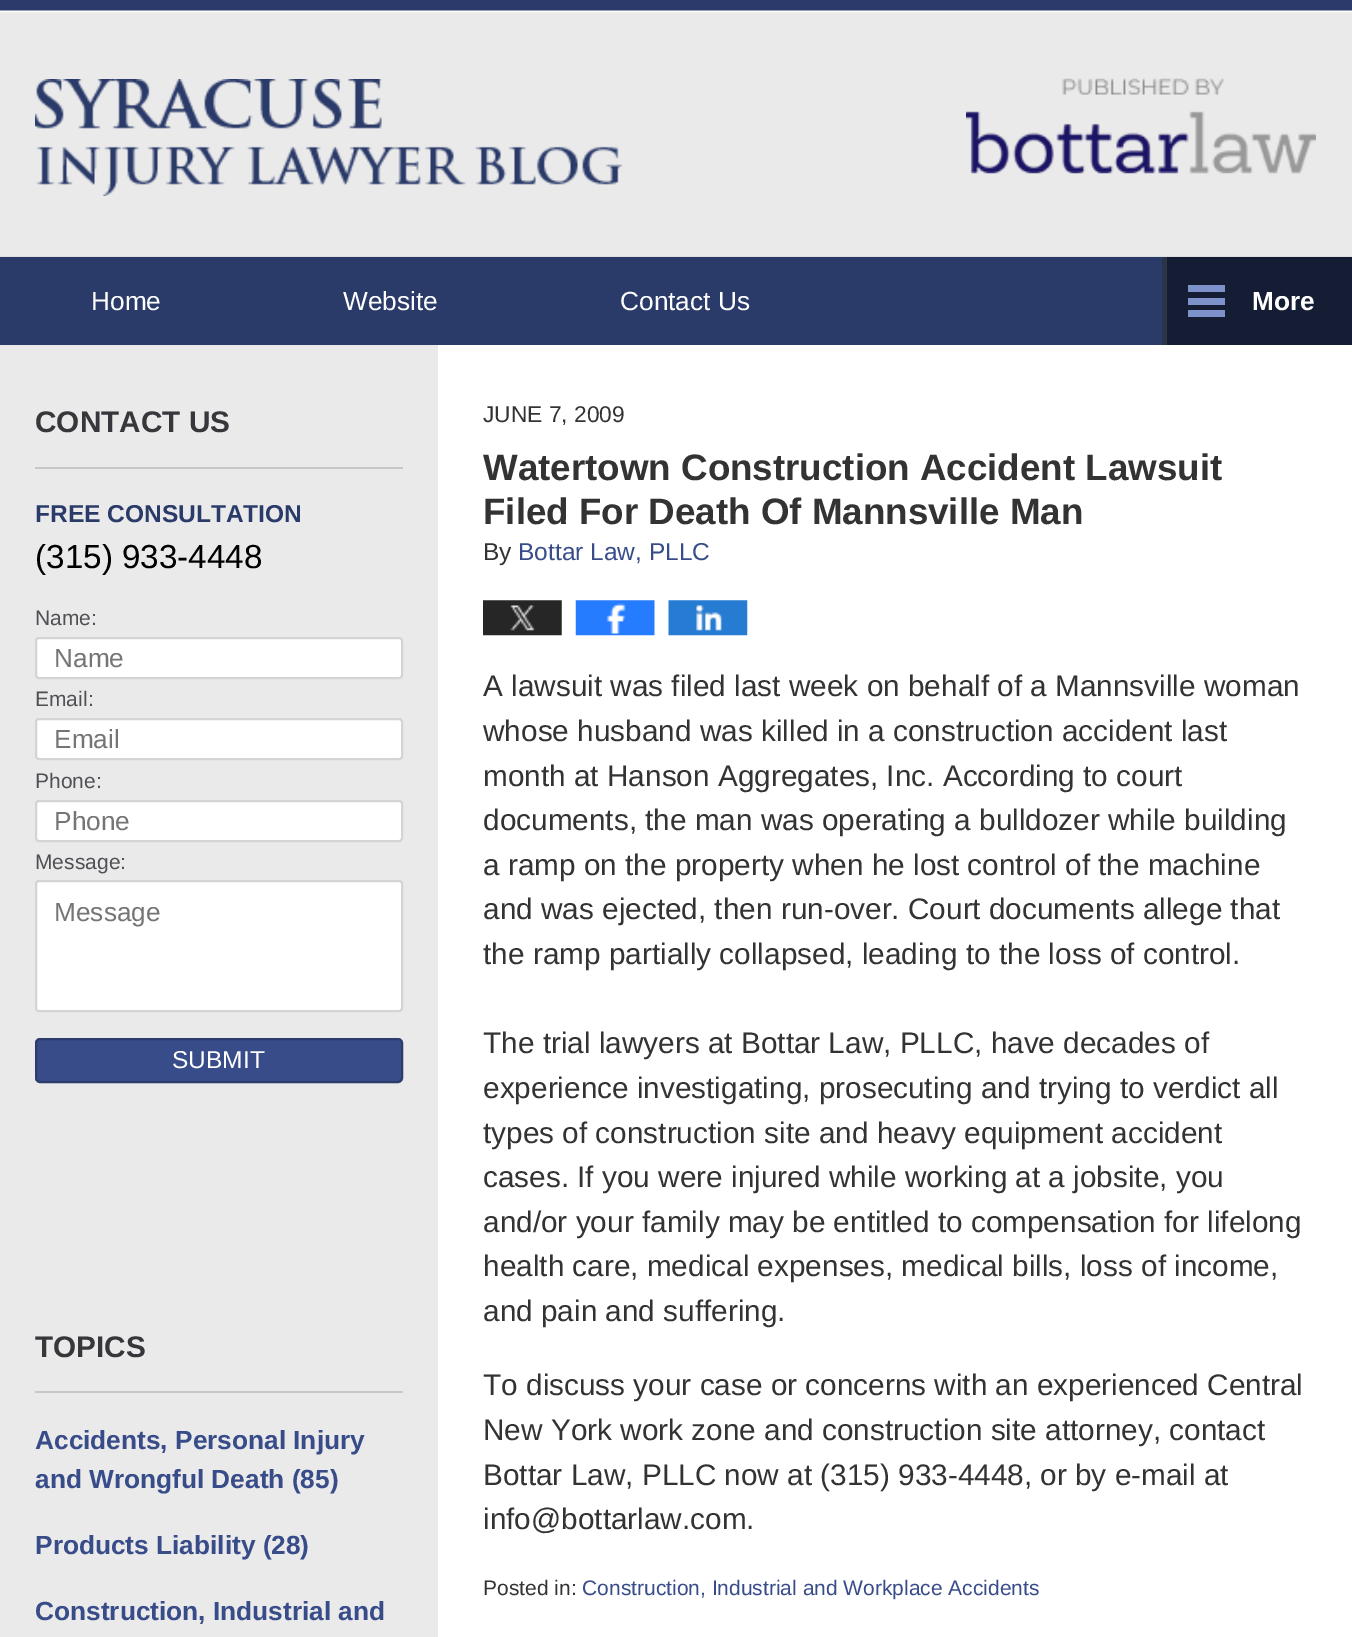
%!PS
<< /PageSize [1352 1637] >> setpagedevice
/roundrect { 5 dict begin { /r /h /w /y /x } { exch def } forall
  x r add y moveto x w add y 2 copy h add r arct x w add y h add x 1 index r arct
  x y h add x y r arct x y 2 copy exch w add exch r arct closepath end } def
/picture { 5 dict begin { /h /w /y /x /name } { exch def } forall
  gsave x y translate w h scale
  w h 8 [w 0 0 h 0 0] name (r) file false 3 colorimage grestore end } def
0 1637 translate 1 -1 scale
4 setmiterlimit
1 setgray
0 0 1352 1637 rectfill
(img1.rgb) 0 0 1352 257 picture
(img2.rgb) 35 79 588 117 picture
(img3.rgb) 966 78 350 96 picture
0.165 0.231 0.412 setrgbcolor
0 257 1162 88 rectfill
/LiberationSans-Regular [26.25 0 0 -26.25 0 0] selectfont
1 setgray
91 310 moveto (Home) show
343 310 moveto (Website) show
620 310 moveto (Contact Us) show
0.082 0.114 0.204 setrgbcolor
1167 257 185 88 rectfill
0.173 0.204 0.282 setrgbcolor
1162 257 5 88 rectfill
0.49 0.569 0.796 setrgbcolor
1188 285 37 7 rectfill
1188 298 37 7 rectfill
/LiberationSans-Bold [26.25 0 0 -26.25 0 0] selectfont
1 setgray
1252 310 moveto (More) show
0.49 0.569 0.796 setrgbcolor
1188 310 37 7 rectfill
0.918 setgray
0 345 438 1292 rectfill
/LiberationSans-Regular [22.75 0 0 -22.75 0 0] selectfont
0.2 setgray
483 422 moveto (JUNE 7, 2009) show
/LiberationSans-Bold [36.75 0 0 -36.75 0 0] selectfont
483 480 moveto (Watertown Construction Accident Lawsuit) show
483 524 moveto (Filed For Death Of Mannsville Man) show
/LiberationSans-Regular [24.5 0 0 -24.5 0 0] selectfont
483 560 moveto (By) show
0.22 0.298 0.537 setrgbcolor
518 560 moveto (Bottar Law, PLLC) show
(img4.rgb) 483 600 79 36 picture
(img5.rgb) 575 600 80 36 picture
(img6.rgb) 668 600 80 36 picture
/LiberationSans-Regular [29.75 0 0 -29.75 0 0] selectfont
0.2 setgray
483 696 moveto (A lawsuit was filed last week on behalf of a Mannsville woman) show
483 741 moveto (whose husband was killed in a construction accident last) show
483 786 moveto (month at Hanson Aggregates, Inc. According to court) show
483 830 moveto (documents, the man was operating a bulldozer while building) show
483 875 moveto (a ramp on the property when he lost control of the machine) show
483 919 moveto (and was ejected, then run-over. Court documents allege that) show
483 964 moveto (the ramp partially collapsed, leading to the loss of control.) show
483 1053 moveto (The trial lawyers at Bottar Law, PLLC, have decades of) show
483 1098 moveto (experience investigating, prosecuting and trying to verdict all) show
483 1143 moveto (types of construction site and heavy equipment accident) show
483 1187 moveto (cases. If you were injured while working at a jobsite, you) show
483 1232 moveto (and/or your family may be entitled to compensation for lifelong) show
483 1276 moveto (health care, medical expenses, medical bills, loss of income,) show
483 1321 moveto (and pain and suffering.) show
483 1395 moveto (To discuss your case or concerns with an experienced Central) show
483 1440 moveto (New York work zone and construction site attorney, contact) show
483 1485 moveto (Bottar Law, PLLC now at \(315\) 933-4448, or by e-mail at) show
483 1529 moveto (info@bottarlaw.com.) show
/LiberationSans-Regular [21 0 0 -21 0 0] selectfont
483 1595 moveto (Posted in:) show
0.22 0.298 0.537 setrgbcolor
582 1595 moveto (Construction, Industrial and Workplace Accidents) show
0.78 setgray
35 467 368 2 rectfill
/LiberationSans-Bold [29.75 0 0 -29.75 0 0] selectfont
0.212 0.212 0.231 setrgbcolor
35 432 moveto (CONTACT US) show
/LiberationSans-Bold [24.5 0 0 -24.5 0 0] selectfont
0.165 0.231 0.412 setrgbcolor
35 522 moveto (FREE CONSULTATION) show
/LiberationSans-Regular [33.25 0 0 -33.25 0 0] selectfont
0 setgray
35 568 moveto (\(315\) 933-4448) show
/LiberationSans-Regular [21 0 0 -21 0 0] selectfont
0.31 0.31 0.329 setrgbcolor
35 625 moveto (Name:) show
1 setgray
36 638 366 40 3 roundrect gsave fill grestore
0.831 setgray
2 setlinewidth
stroke
/LiberationSans-Regular [26.25 0 0 -26.25 0 0] selectfont
0.459 setgray
54 667 moveto (Name) show
/LiberationSans-Regular [21 0 0 -21 0 0] selectfont
0.31 0.31 0.329 setrgbcolor
35 706 moveto (Email:) show
1 setgray
36 719 366 40 3 roundrect gsave fill grestore
0.831 setgray
stroke
/LiberationSans-Regular [26.25 0 0 -26.25 0 0] selectfont
0.459 setgray
54 748 moveto (Email) show
/LiberationSans-Regular [21 0 0 -21 0 0] selectfont
0.31 0.31 0.329 setrgbcolor
35 788 moveto (Phone:) show
1 setgray
36 801 366 40 3 roundrect gsave fill grestore
0.831 setgray
stroke
/LiberationSans-Regular [26.25 0 0 -26.25 0 0] selectfont
0.459 setgray
54 830 moveto (Phone) show
/LiberationSans-Regular [21 0 0 -21 0 0] selectfont
0.31 0.31 0.329 setrgbcolor
35 869 moveto (Message:) show
1 setgray
36 881 366 130 3 roundrect gsave fill grestore
0.831 setgray
stroke
/LiberationSans-Regular [26.25 0 0 -26.25 0 0] selectfont
0.459 setgray
54 921 moveto (Message) show
0.22 0.298 0.537 setrgbcolor
36 1039 366 43 4 roundrect gsave fill grestore
0.173 0.235 0.424 setrgbcolor
stroke
/LiberationSans-Regular [24.5 0 0 -24.5 0 0] selectfont
1 setgray
172 1068 moveto (SUBMIT) show
0.78 setgray
35 1391 368 2 rectfill
/LiberationSans-Bold [29.75 0 0 -29.75 0 0] selectfont
0.212 0.212 0.231 setrgbcolor
35 1357 moveto (TOPICS) show
/LiberationSans-Bold [26.25 0 0 -26.25 0 0] selectfont
0.22 0.298 0.537 setrgbcolor
35 1449 moveto (Accidents, Personal Injury) show
35 1488 moveto (and Wrongful Death \(85\)) show
35 1554 moveto (Products Liability \(28\)) show
35 1620 moveto (Construction, Industrial and) show
showpage
